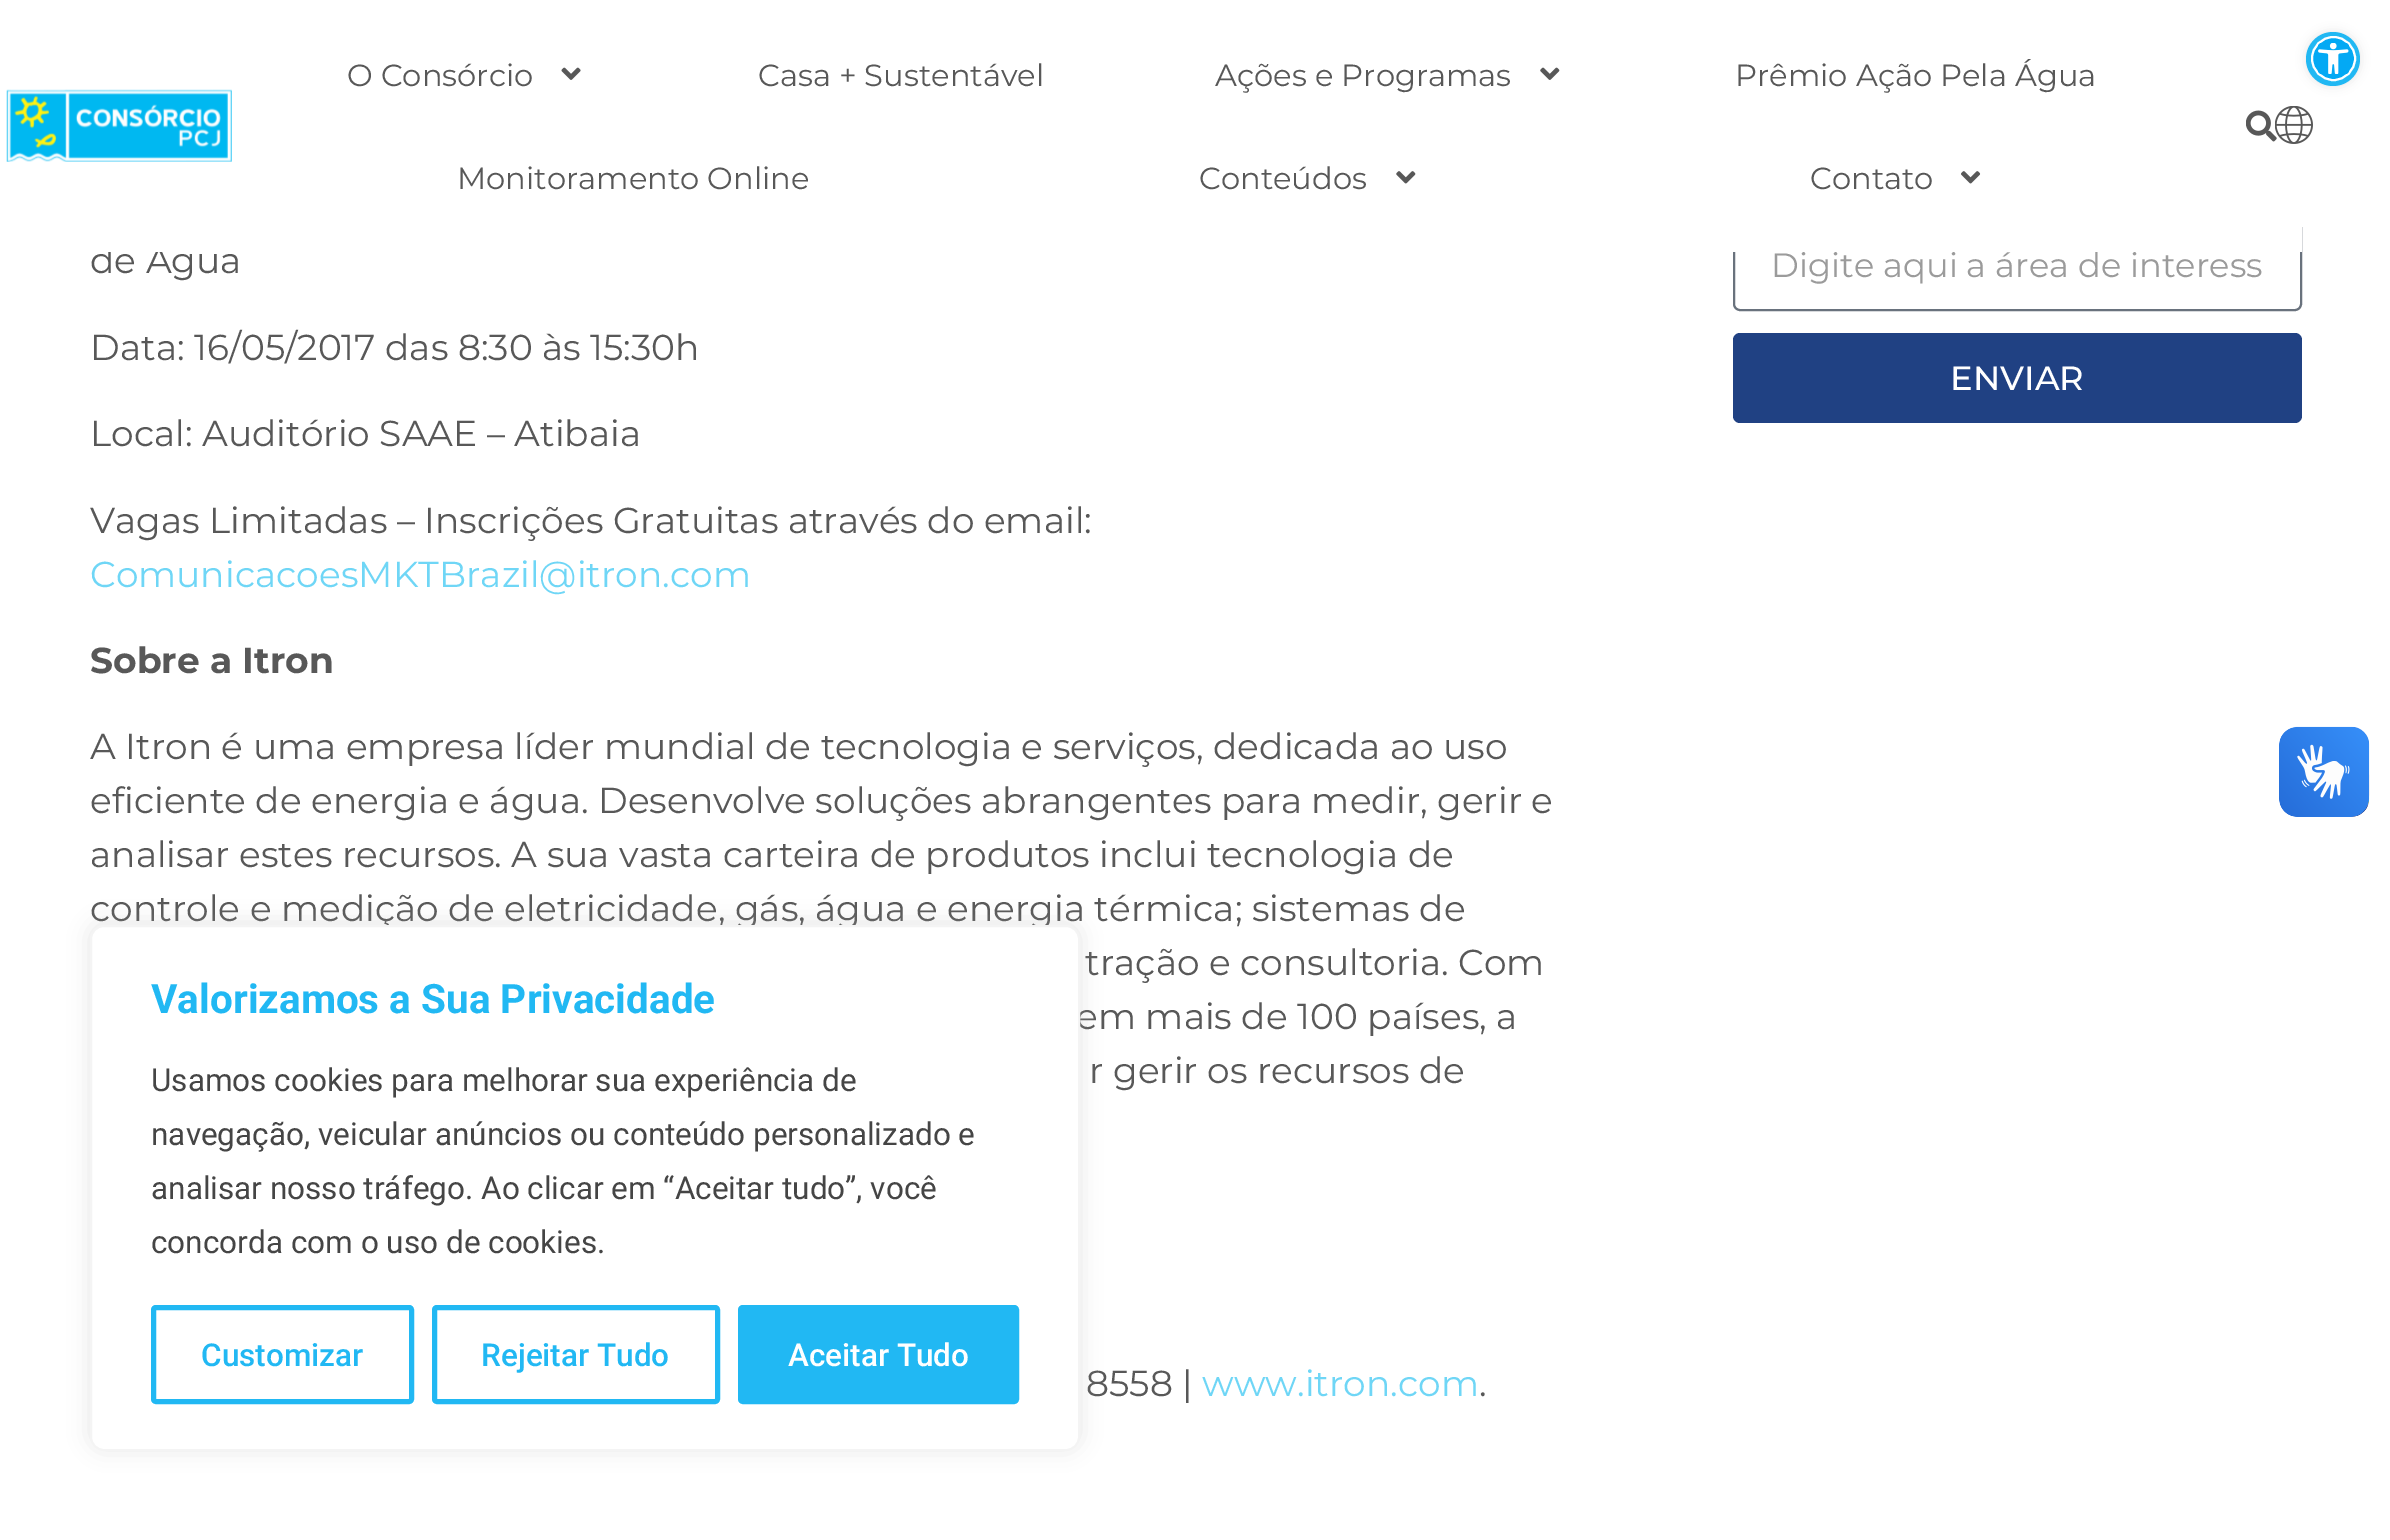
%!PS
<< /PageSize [2390 1540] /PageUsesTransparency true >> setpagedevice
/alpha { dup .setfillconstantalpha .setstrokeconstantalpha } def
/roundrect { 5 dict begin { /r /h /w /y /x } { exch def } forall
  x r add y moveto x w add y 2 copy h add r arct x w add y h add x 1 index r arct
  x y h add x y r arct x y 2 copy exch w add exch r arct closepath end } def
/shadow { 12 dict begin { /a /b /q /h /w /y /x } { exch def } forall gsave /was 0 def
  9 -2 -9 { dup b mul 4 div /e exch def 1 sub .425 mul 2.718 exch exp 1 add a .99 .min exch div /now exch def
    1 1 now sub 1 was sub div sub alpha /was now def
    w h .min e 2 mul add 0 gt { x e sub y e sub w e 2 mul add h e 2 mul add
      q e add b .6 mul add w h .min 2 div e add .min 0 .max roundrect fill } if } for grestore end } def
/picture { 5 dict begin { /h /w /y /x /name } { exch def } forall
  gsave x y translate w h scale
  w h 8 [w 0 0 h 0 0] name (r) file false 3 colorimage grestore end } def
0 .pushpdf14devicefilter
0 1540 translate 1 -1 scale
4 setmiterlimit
1 setgray
0 0 2390 1540 rectfill
/Montserrat-Regular [36 0 0 -36 0 0] selectfont
0.345 setgray
90 273 moveto (de Água) show
0.412 0.447 0.49 setrgbcolor
2 setlinewidth
1734 222 567 88 6 roundrect stroke
/Montserrat-Regular [33.75 0 0 -33.75 0 0] selectfont
0.608 setgray
1771 277 moveto (Digite aqui a área de interess) show
1 setgray
108 221 2194 31 rectfill
(img1.rgb) 6 89 226 73 picture
/Montserrat-Regular [30.6 0 0 -30.6 0 0] selectfont
0.345 setgray
347 86 moveto (O Consórcio) show
(img2.rgb) 561 67 20 13 picture
758 86 moveto (Casa + Sustentável) show
1215 86 moveto (Ações e Programas) show
(img3.rgb) 1540 67 20 13 picture
1735 86 moveto (Prêmio Ação Pela Água) show
457 189 moveto (Monitoramento Online) show
1199 189 moveto (Conteúdos) show
(img4.rgb) 1396 171 20 13 picture
1810 189 moveto (Contato) show
(img5.rgb) 1961 171 20 13 picture
(img6.rgb) 2246 110 31 32 picture
(img7.rgb) 2275 106 38 38 picture
0 setgray
2306 32 54 54 27 5 0.1 shadow
0.129 0.722 0.953 setrgbcolor
newpath 2333 59 27 0 360 arc closepath fill
0.012 0.663 0.957 setrgbcolor
newpath 2333.5 58.5 21.5 0 360 arc closepath gsave fill grestore
1 setgray
stroke
(img8.rgb) 2318 43 31 31 picture
/Montserrat-Regular [36 0 0 -36 0 0] selectfont
0.345 setgray
90 360 moveto (Data: 16/05/2017 das 8:30 às 15:30h) show
90 446 moveto (Local: Auditório SAAE – Atibaia) show
90 533 moveto (Vagas Limitadas – Inscrições Gratuitas através do email:) show
0.435 0.839 0.965 setrgbcolor
90 587 moveto (ComunicacoesMKTBrazil@itron.com) show
/Montserrat-Bold [36 0 0 -36 0 0] selectfont
0.345 setgray
90 673 moveto (Sobre a Itron) show
/Montserrat-Regular [36 0 0 -36 0 0] selectfont
90 759 moveto (A Itron é uma empresa líder mundial de tecnologia e serviços, dedicada ao uso) show
90 813 moveto (eficiente de energia e água. Desenvolve soluções abrangentes para medir, gerir e) show
90 867 moveto (analisar estes recursos. A sua vasta carteira de produtos inclui tecnologia de) show
90 921 moveto (controle e medição de eletricidade, gás, água e energia térmica; sistemas de) show
1085 975 moveto (tração e consultoria. Com) show
1076 1029 moveto (em mais de 100 países, a) show
1089 1083 moveto (r gerir os recursos de) show
1086 1396 moveto (8558 |) show
0.435 0.839 0.965 setrgbcolor
1202 1396 moveto (www.itron.com) show
0.345 setgray
1479 1396 moveto (.) show
0.125 0.255 0.514 setrgbcolor
1733 333 569 90 7 roundrect fill
/Montserrat-Medium [33.75 0 0 -33.75 0 0] selectfont
1 setgray
1950 390 moveto (ENVIAR) show
(img9.rgb) 2279 726 91 91 picture
(img10.rgb) 2279 727 90 90 picture
0.675 0.671 0.671 setrgbcolor
90 923 990 526 14 11 0.3 shadow
1 setgray
91 926 988 524 13 roundrect gsave fill grestore
0.957 setgray
stroke
/Roboto-Bold [40.5 0 0 -40.5 0 0] selectfont
0.129 0.722 0.953 setrgbcolor
151 1013 moveto (Valorizamos a Sua Privacidade) show
/Roboto-Regular [31.5 0 0 -31.5 0 0] selectfont
0.271 setgray
151 1091 moveto (Usamos cookies para melhorar sua experiência de) show
151 1145 moveto (navegação, veicular anúncios ou conteúdo personalizado e) show
151 1199 moveto (analisar nosso tráfego. Ao clicar em “Aceitar tudo”, você) show
151 1253 moveto (concorda com o uso de cookies.) show
0.129 0.722 0.953 setrgbcolor
5 setlinewidth
153.5 1307.5 258 94 2.5 roundrect stroke
/Roboto-Medium [31.5 0 0 -31.5 0 0] selectfont
201 1366 moveto (Customizar) show
434.5 1307.5 283 94 2.5 roundrect stroke
481 1366 moveto (Rejeitar Tudo) show
740.5 1307.5 276 94 2.5 roundrect gsave fill grestore
stroke
1 setgray
788 1366 moveto (Aceitar Tudo) show
.poppdf14devicefilter showpage
